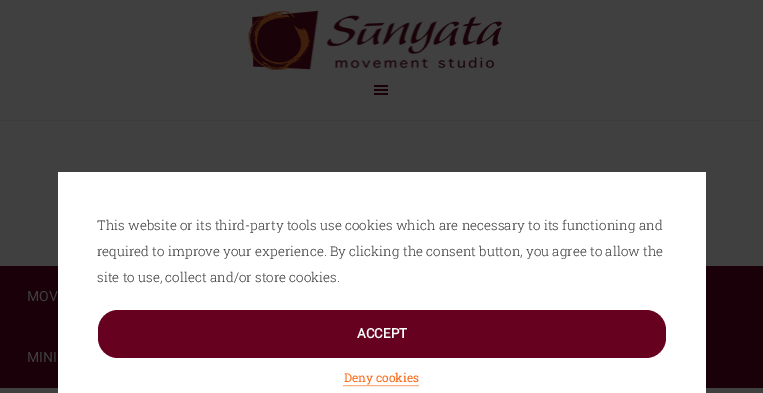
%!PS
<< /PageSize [763 393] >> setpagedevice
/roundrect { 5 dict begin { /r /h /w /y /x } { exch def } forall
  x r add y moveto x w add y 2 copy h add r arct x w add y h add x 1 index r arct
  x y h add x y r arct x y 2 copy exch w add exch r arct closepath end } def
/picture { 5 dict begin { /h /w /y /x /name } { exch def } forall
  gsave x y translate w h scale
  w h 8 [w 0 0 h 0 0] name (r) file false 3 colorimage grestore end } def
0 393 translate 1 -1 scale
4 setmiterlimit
0.251 setgray
0 0 763 393 rectfill
0.235 setgray
0 120 763 1 rectfill
(img1.rgb) 247 10 255 60 picture
(img2.rgb) 374 85 14 10 picture
0.102 0 0.031 setrgbcolor
0 266 763 122 rectfill
/Roboto-Regular [14 0 0 -14 0 0] selectfont
0.251 setgray
27 301 moveto (MOV) show
27 362 moveto (MINI) show
1 setgray
58 172 648 221 rectfill
/RobotoSlab-Light [13.35 0 0 -13.35 0 0] selectfont
0.2 setgray
97 230 moveto (This website or its third-party tools use cookies which are necessary to its functioning and) show
97 256 moveto (required to improve your experience. By clicking the consent button, you agree to allow the) show
97 282 moveto (site to use, collect and/or store cookies.) show
0.4 0.004 0.122 setrgbcolor
98 310 568 48 20 roundrect fill
/Roboto-Bold [13.35 0 0 -13.35 0 0] selectfont
1 setgray
357 338 moveto (ACCEPT) show
/RobotoSlab-Regular [12 0 0 -12 0 0] selectfont
0.98 0.404 0.078 setrgbcolor
344 382 moveto (Deny cookies) show
[1 1] 0 setdash
newpath 343.5 385.5 moveto 418.5 385.5 lineto stroke
showpage
